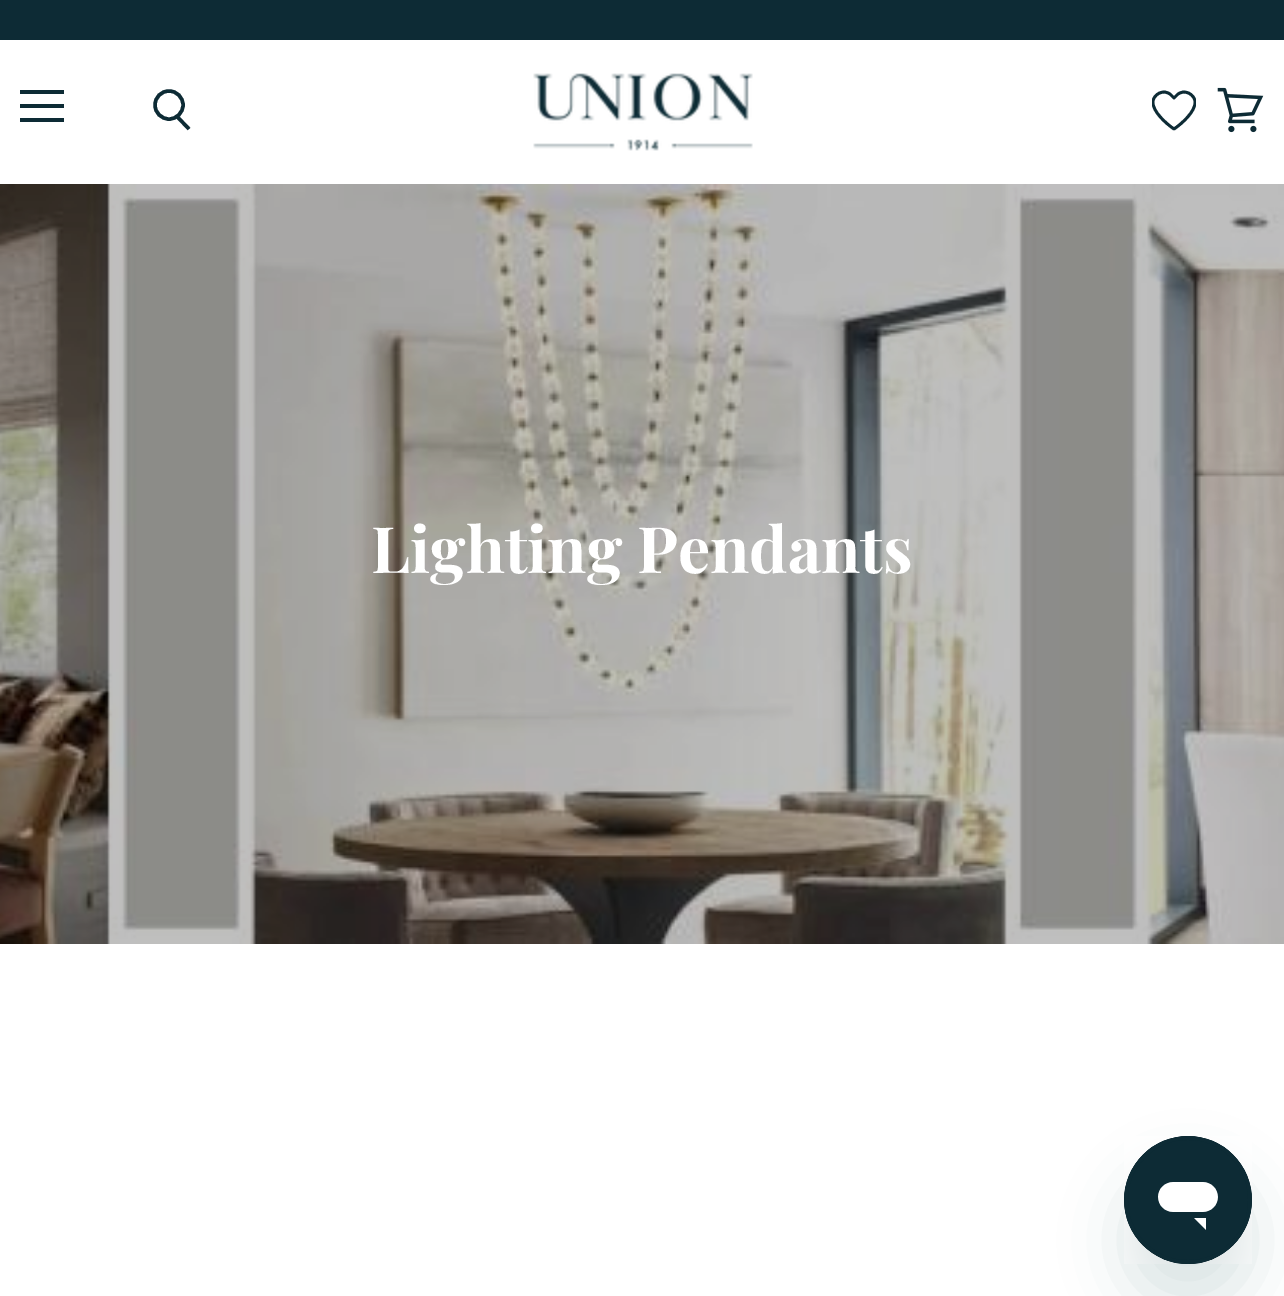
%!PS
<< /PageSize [1284 1296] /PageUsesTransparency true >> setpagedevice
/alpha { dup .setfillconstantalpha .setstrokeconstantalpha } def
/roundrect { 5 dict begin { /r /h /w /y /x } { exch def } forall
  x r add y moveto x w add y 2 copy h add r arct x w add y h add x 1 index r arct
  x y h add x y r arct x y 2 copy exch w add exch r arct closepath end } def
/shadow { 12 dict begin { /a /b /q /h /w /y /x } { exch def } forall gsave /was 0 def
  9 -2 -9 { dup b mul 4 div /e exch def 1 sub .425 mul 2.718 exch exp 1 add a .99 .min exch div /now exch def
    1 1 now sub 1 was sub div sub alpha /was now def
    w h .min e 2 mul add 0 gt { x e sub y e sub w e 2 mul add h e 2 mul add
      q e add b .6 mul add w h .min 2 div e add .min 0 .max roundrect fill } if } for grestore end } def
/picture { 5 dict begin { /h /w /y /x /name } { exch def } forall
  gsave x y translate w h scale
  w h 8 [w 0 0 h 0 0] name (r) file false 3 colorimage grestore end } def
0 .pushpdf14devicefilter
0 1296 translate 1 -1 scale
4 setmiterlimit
1 setgray
0 0 1284 1296 rectfill
0.051 0.169 0.208 setrgbcolor
0 0 1284 40 rectfill
(img1.rgb) 533 73 220 78 picture
20 90 44 4 rectfill
20 104 44 4 rectfill
20 118 44 4 rectfill
3.5 setlinewidth
newpath 189 129 moveto 177 116.5 lineto stroke
newpath 169 105 14 0 360 arc closepath stroke
gsave
1152 66 44 88 rectclip
2.8 setlinewidth
1 setlinecap
1 setlinejoin
newpath 1177 95 moveto 1174 98 lineto 1171 95 lineto 1164 88 1153 94.5 1153 102 curveto 1152.5 111.5 1166 123.5 1174 129 curveto 1182 123.5 1195.5 111.5 1195 102 curveto 1195 94.5 1184 88 1177 95 curveto closepath stroke
grestore
(img2.rgb) 1217 87 47 46 picture
(img3.rgb) 0 184 1284 760 picture
/PlayfairDisplay-Bold [64 0 0 -64 0 0] selectfont
1 setgray
371 573 moveto (Lighting Pendants) show
0.09 0.286 0.302 setrgbcolor
1124 1176 128 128 64 30 0.15 shadow
(img4.rgb) 1124 1136 128 128 picture
.poppdf14devicefilter showpage
